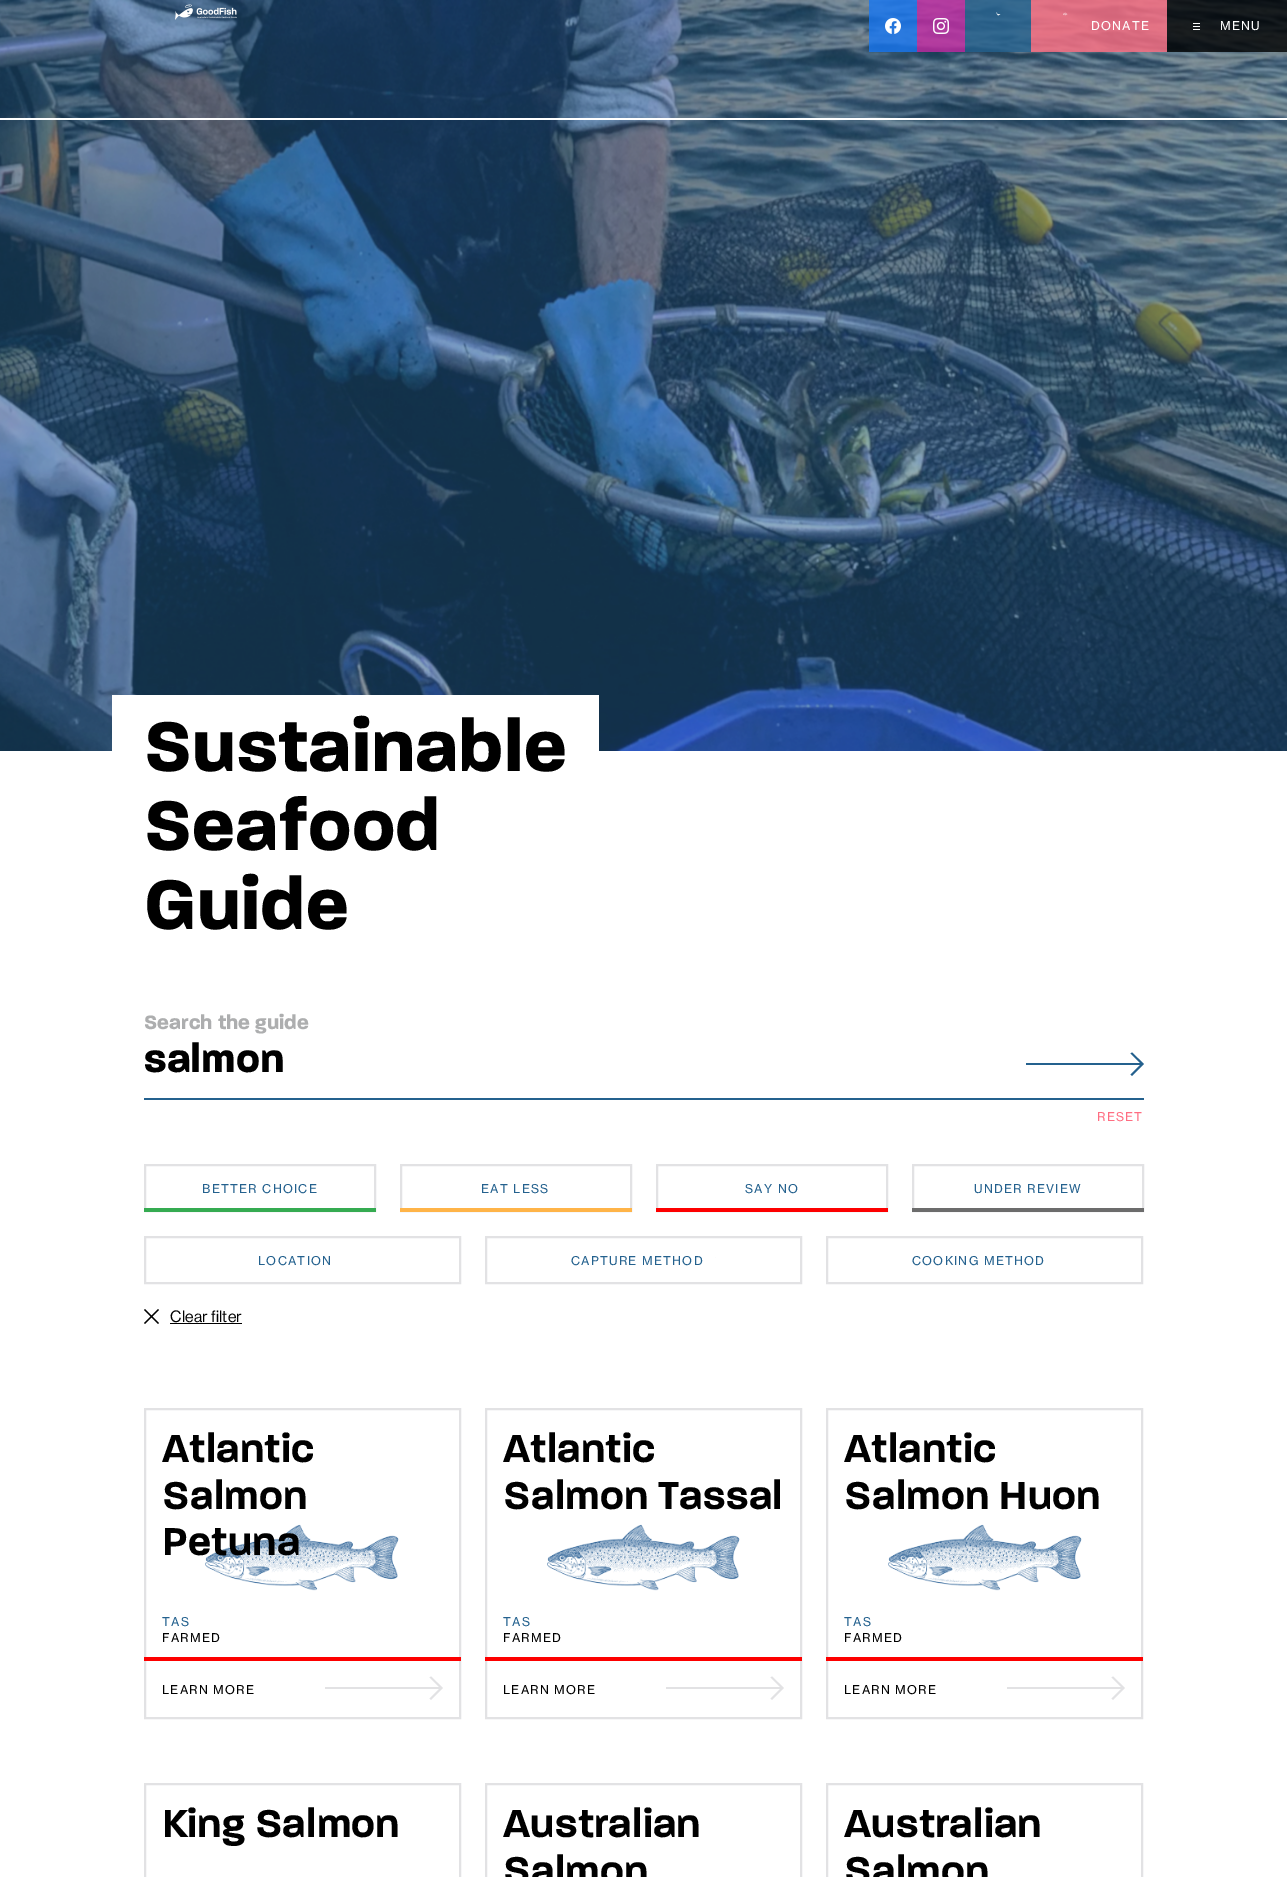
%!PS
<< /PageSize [1287 1877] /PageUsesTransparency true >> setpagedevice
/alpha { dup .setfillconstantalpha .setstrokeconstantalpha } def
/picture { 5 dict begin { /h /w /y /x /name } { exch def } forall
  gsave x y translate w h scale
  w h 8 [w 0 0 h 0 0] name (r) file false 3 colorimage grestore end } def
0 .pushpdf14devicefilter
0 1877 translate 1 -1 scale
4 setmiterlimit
1 setgray
0 0 1287 1877 rectfill
(img6.rgb) 0 0 1287 751 picture
0 118 1287 2 rectfill
(img1.rgb) 175 4 62 16 picture
0.8 alpha
0.094 0.467 0.949 setrgbcolor
869 0 48 52 rectfill
1 alpha
(img2.rgb) 885 18 16 16 picture
0.8 alpha
0.765 0.165 0.639 setrgbcolor
917 0 48 52 rectfill
1 alpha
(img3.rgb) 933 18 16 16 picture
0.8 alpha
0.141 0.38 0.557 setrgbcolor
965 0 66 52 rectfill
1 alpha
(img4.rgb) 996 12 5 4 picture
0.8 alpha
1 0.427 0.506 setrgbcolor
1031 0 136 52 rectfill
1 alpha
(img5.rgb) 1063 12 5 4 picture
/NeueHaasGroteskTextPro-Regular [12 0 0 -12 0 0] selectfont
1 setgray
1091 30 moveto 1.25 0 (DONATE) ashow
0.8 alpha
0 setgray
1167 0 120 52 rectfill
1 alpha
1 setgray
1193 26 7 1 rectfill
1193 23 7 1 rectfill
1193 29 7 1 rectfill
1220 30 moveto 1.25 0 (MENU) ashow
112 695 487 56 rectfill
/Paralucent-Bold [76 0 0 -76 0 0] selectfont
0 setgray
144 771 moveto 0.25 0 (Sustainable) ashow
144 850 moveto 0.25 0 (Seafood) ashow
144 929 moveto 0.25 0 (Guide) ashow
0.141 0.38 0.557 setrgbcolor
144 1098 1000 2 rectfill
/Paralucent-Bold [21 0 0 -21 0 0] selectfont
0.678 0.682 0.686 setrgbcolor
144 1029 moveto 0.1 0 (Search the guide) ashow
/Paralucent-Bold [42 0 0 -42 0 0] selectfont
0 setgray
144 1072 moveto (salmon) show
0.141 0.38 0.557 setrgbcolor
1026 1063 116 2 rectfill
newpath 1130.5 1074.5 moveto 1132 1076 lineto 1144 1064 lineto 1132 1052.5 lineto 1130.5 1053.5 lineto 1141 1064 lineto closepath fill
/NeueHaasGroteskTextPro-Regular [12 0 0 -12 0 0] selectfont
1 0.427 0.506 setrgbcolor
1097 1121 moveto 1.25 0 (RESET) ashow
0.886 0.886 0.894 setrgbcolor
2 setlinewidth
145 1165 230 46 rectstroke
0.141 0.38 0.557 setrgbcolor
202 1193 moveto 1.25 0 (BETTER CHOICE) ashow
0.208 0.671 0.318 setrgbcolor
144 1208 232 4 rectfill
0.886 0.886 0.894 setrgbcolor
401 1165 230 46 rectstroke
0.141 0.38 0.557 setrgbcolor
481 1193 moveto 1.25 0 (EAT LESS) ashow
1 0.706 0.282 setrgbcolor
400 1208 232 4 rectfill
0.886 0.886 0.894 setrgbcolor
657 1165 230 46 rectstroke
0.141 0.38 0.557 setrgbcolor
745 1193 moveto 1.25 0 (SAY NO) ashow
0.992 0 0 setrgbcolor
656 1208 232 4 rectfill
0.886 0.886 0.894 setrgbcolor
913 1165 230 46 rectstroke
0.141 0.38 0.557 setrgbcolor
974 1193 moveto 1.25 0 (UNDER REVIEW) ashow
0.424 setgray
912 1208 232 4 rectfill
0.886 0.886 0.894 setrgbcolor
145 1237 315 46 rectstroke
0.141 0.38 0.557 setrgbcolor
258 1265 moveto 1.25 0 (LOCATION) ashow
0.886 0.886 0.894 setrgbcolor
486 1237 315 46 rectstroke
0.141 0.38 0.557 setrgbcolor
571 1265 moveto 1.25 0 (CAPTURE METHOD) ashow
0.984 0.988 0.992 setrgbcolor
715 1257 1 1 rectfill
0.886 0.886 0.894 setrgbcolor
827 1237 315 46 rectstroke
0.141 0.38 0.557 setrgbcolor
912 1265 moveto 1.25 0 (COOKING METHOD) ashow
0 setgray
1.2 setlinewidth
newpath 144.5 1309.5 moveto 158.5 1323.5 lineto 158.5 1309.5 moveto 144.5 1323.5 lineto stroke
/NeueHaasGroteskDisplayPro-Medium [16 0 0 -16 0 0] selectfont
170 1322 moveto 0.25 0 (Clear filter) ashow
170 1323 72 1 rectfill
0.886 0.886 0.894 setrgbcolor
2 setlinewidth
145 1409 315 309 rectstroke
/Paralucent-SemiBold [42 0 0 -42 0 0] selectfont
0 setgray
162 1462 moveto 0.25 0 (Atlantic) ashow
162 1509 moveto 0.25 0 (Salmon) ashow
(img7.rgb) 205 1524 194 67 picture
162 1555 moveto 0.25 0 (Petuna) ashow
/NeueHaasGroteskTextPro-Regular [12 0 0 -12 0 0] selectfont
0.141 0.38 0.557 setrgbcolor
162 1626 moveto 1.25 0 (TAS) ashow
0 setgray
162 1642 moveto 1.25 0 (FARMED) ashow
0.992 0 0 setrgbcolor
144 1657 317 4 rectfill
0 setgray
162 1694 moveto 1.25 0 (LEARN MORE) ashow
0.886 0.886 0.894 setrgbcolor
325 1687 117 2 rectfill
newpath 429.5 1698.5 moveto 431 1700 lineto 443 1688 lineto 431 1676.5 lineto 429.5 1677.5 lineto 440 1688 lineto closepath fill
486 1409 315 309 rectstroke
/Paralucent-SemiBold [42 0 0 -42 0 0] selectfont
0 setgray
503 1462 moveto 0.25 0 (Atlantic) ashow
503 1509 moveto 0.25 0 (Salmon Tassal) ashow
(img8.rgb) 547 1524 193 67 picture
/NeueHaasGroteskTextPro-Regular [12 0 0 -12 0 0] selectfont
0.141 0.38 0.557 setrgbcolor
503 1626 moveto 1.25 0 (TAS) ashow
0 setgray
503 1642 moveto 1.25 0 (FARMED) ashow
0.992 0 0 setrgbcolor
485 1657 317 4 rectfill
0 setgray
503 1694 moveto 1.25 0 (LEARN MORE) ashow
0.886 0.886 0.894 setrgbcolor
666 1687 116 2 rectfill
newpath 770.5 1698.5 moveto 772 1700 lineto 784 1688 lineto 772 1676.5 lineto 770.5 1677.5 lineto 781 1688 lineto closepath fill
827 1409 315 309 rectstroke
/Paralucent-SemiBold [42 0 0 -42 0 0] selectfont
0 setgray
844 1462 moveto 0.25 0 (Atlantic) ashow
844 1509 moveto 0.25 0 (Salmon Huon) ashow
(img7.rgb) 888 1524 194 67 picture
/NeueHaasGroteskTextPro-Regular [12 0 0 -12 0 0] selectfont
0.141 0.38 0.557 setrgbcolor
844 1626 moveto 1.25 0 (TAS) ashow
0 setgray
844 1642 moveto 1.25 0 (FARMED) ashow
0.992 0 0 setrgbcolor
826 1657 317 4 rectfill
0 setgray
844 1694 moveto 1.25 0 (LEARN MORE) ashow
0.886 0.886 0.894 setrgbcolor
1007 1687 117 2 rectfill
newpath 1111.5 1698.5 moveto 1113 1700 lineto 1125 1688 lineto 1113 1676.5 lineto 1111.5 1677.5 lineto 1122 1688 lineto closepath fill
145 1784 315 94 rectstroke
/Paralucent-SemiBold [42 0 0 -42 0 0] selectfont
0 setgray
162 1837 moveto 0.25 0 (King Salmon) ashow
0.886 0.886 0.894 setrgbcolor
486 1784 315 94 rectstroke
0 setgray
503 1837 moveto 0.25 0 (Australian) ashow
503 1884 moveto 0.25 0 (Salmon) ashow
0.886 0.886 0.894 setrgbcolor
827 1784 315 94 rectstroke
0 setgray
844 1837 moveto 0.25 0 (Australian) ashow
844 1884 moveto 0.25 0 (Salmon) ashow
.poppdf14devicefilter showpage
